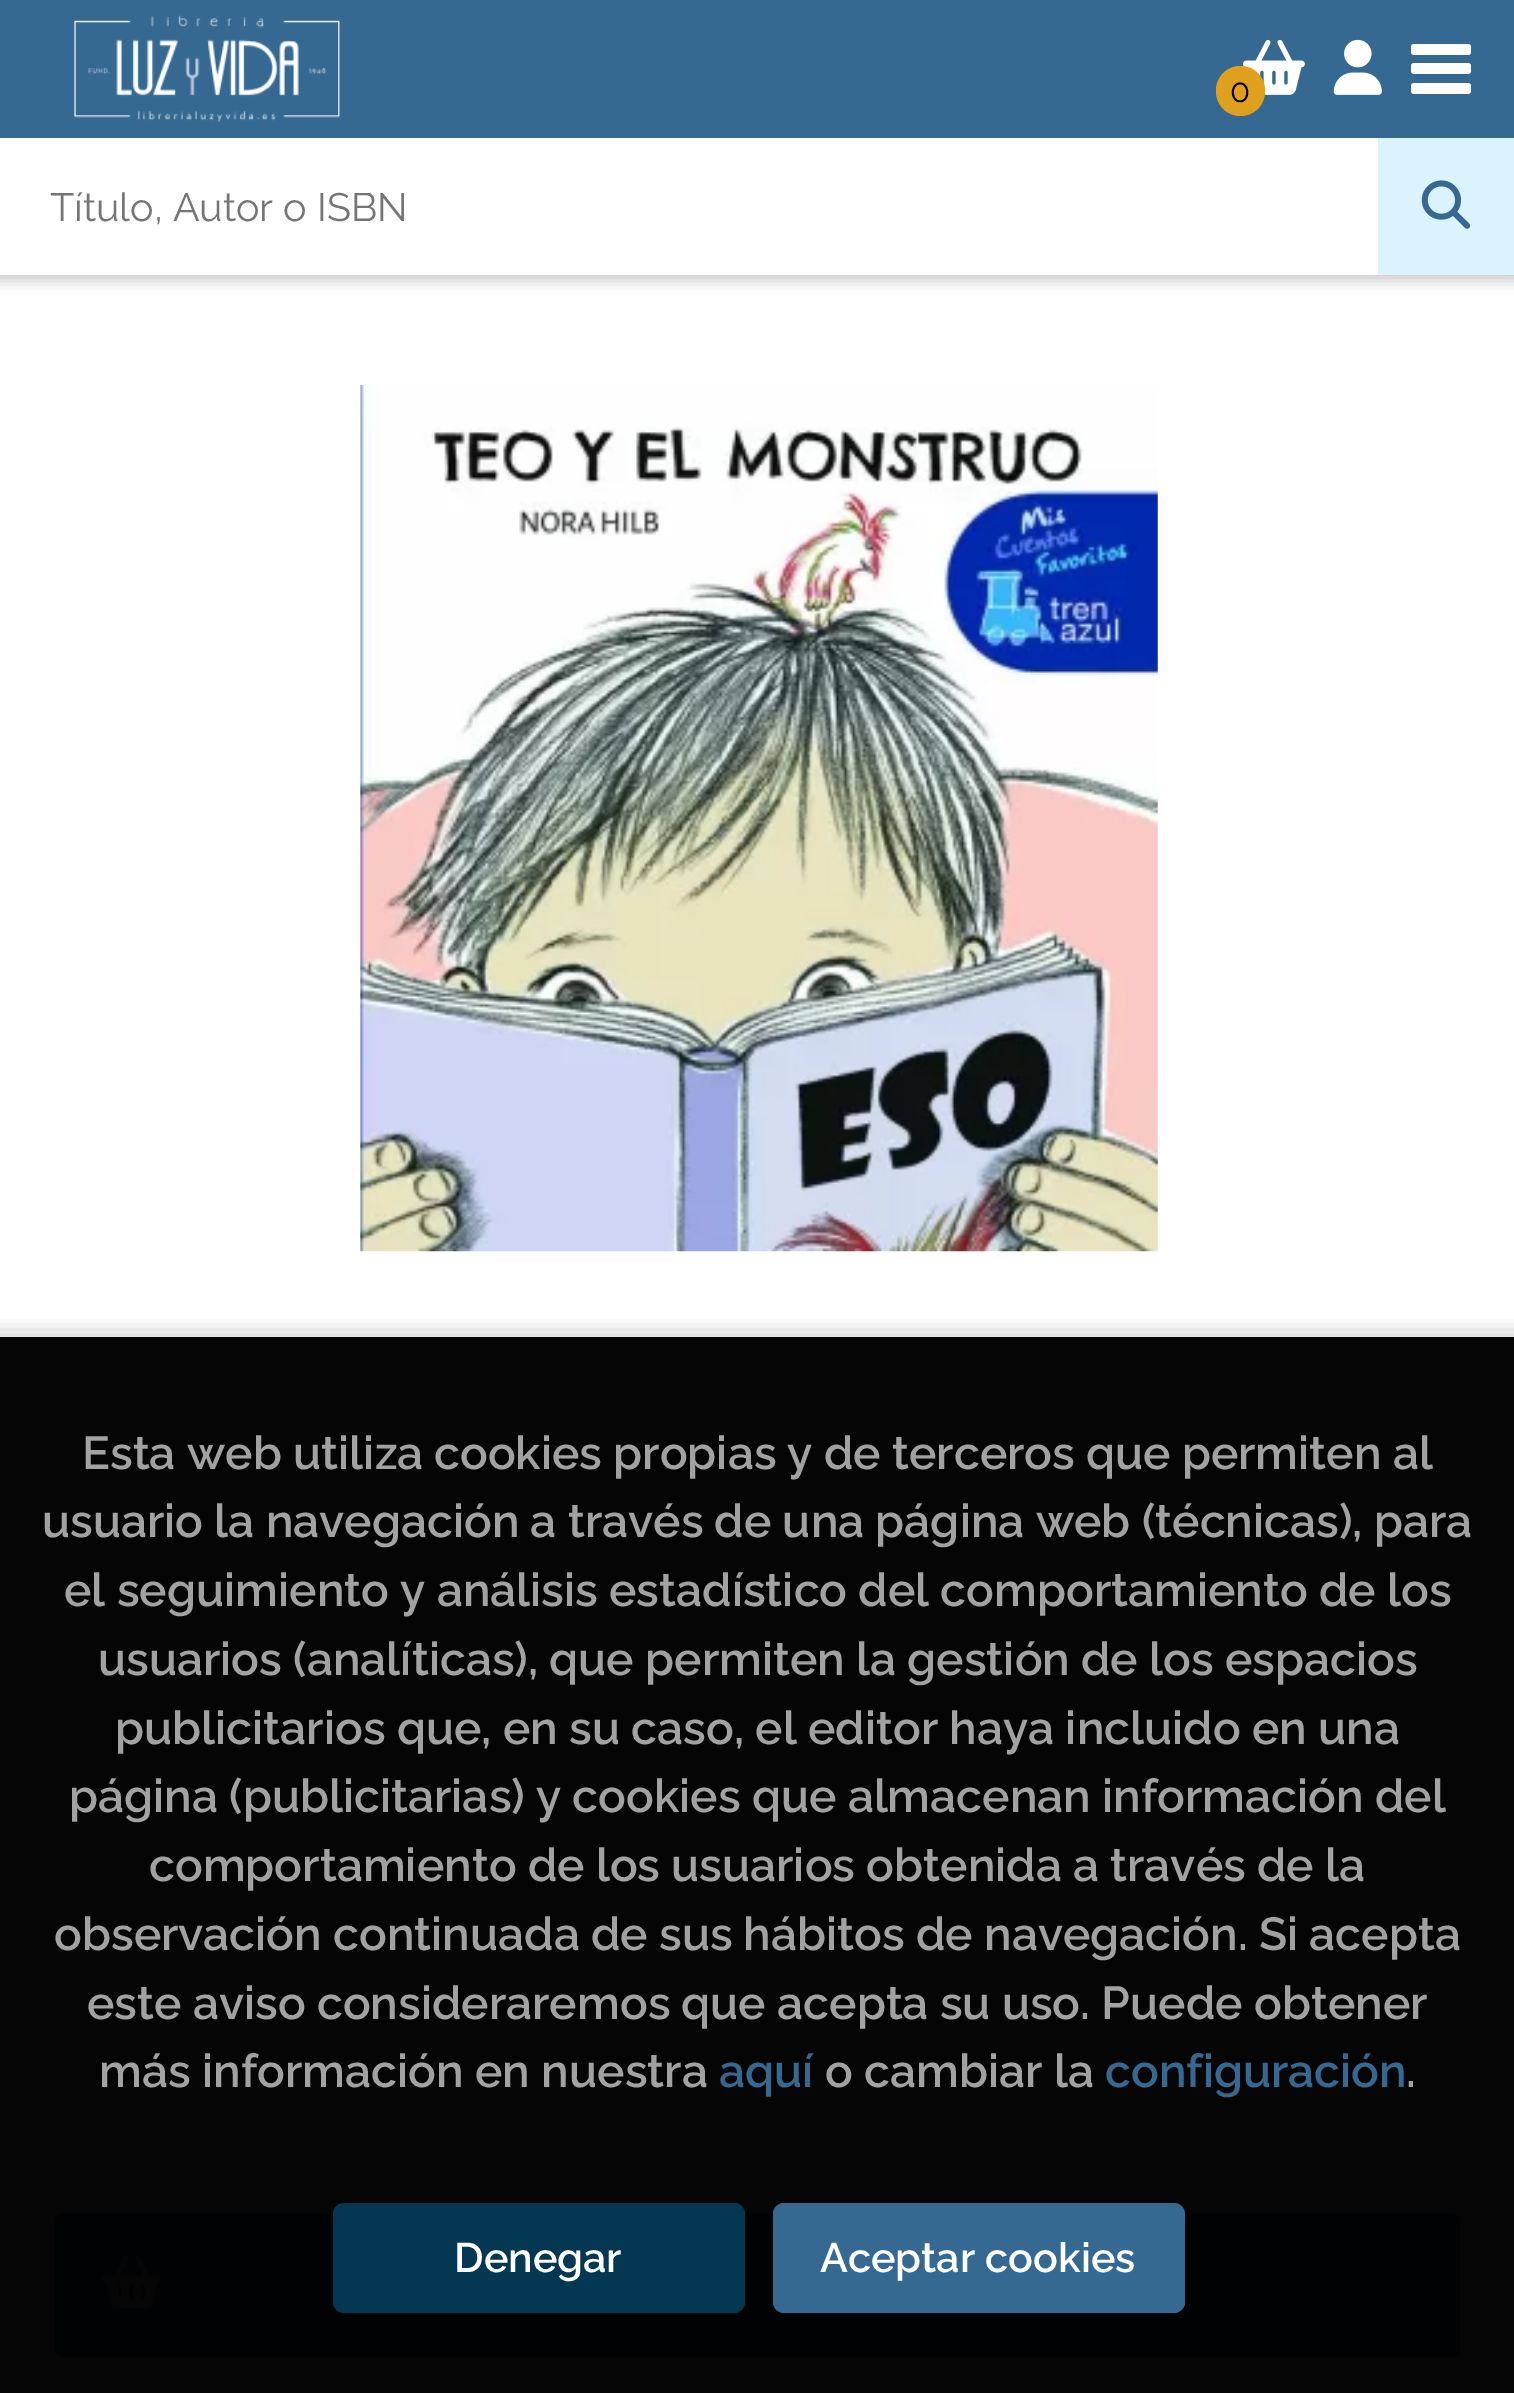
%!PS
<< /PageSize [1514 2393] /PageUsesTransparency true >> setpagedevice
/alpha { dup .setfillconstantalpha .setstrokeconstantalpha } def
/roundrect { 5 dict begin { /r /h /w /y /x } { exch def } forall
  x r add y moveto x w add y 2 copy h add r arct x w add y h add x 1 index r arct
  x y h add x y r arct x y 2 copy exch w add exch r arct closepath end } def
/shadow { 12 dict begin { /a /b /q /h /w /y /x } { exch def } forall gsave /was 0 def
  9 -2 -9 { dup b mul 4 div /e exch def 1 sub .425 mul 2.718 exch exp 1 add a .99 .min exch div /now exch def
    1 1 now sub 1 was sub div sub alpha /was now def
    w h .min e 2 mul add 0 gt { x e sub y e sub w e 2 mul add h e 2 mul add
      q e add b .6 mul add w h .min 2 div e add .min 0 .max roundrect fill } if } for grestore end } def
/picture { 5 dict begin { /h /w /y /x /name } { exch def } forall
  gsave x y translate w h scale
  w h 8 [w 0 0 h 0 0] name (r) file false 3 colorimage grestore end } def
0 .pushpdf14devicefilter
0 2393 translate 1 -1 scale
4 setmiterlimit
1 setgray
0 0 1514 2393 rectfill
0 setgray
-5 -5 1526 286 0 7 0.2 shadow
0.208 0.412 0.573 setrgbcolor
0 0 1514 138 rectfill
(img1.rgb) 1243 39 62 56 picture
0.875 0.627 0.118 setrgbcolor
1216 66 49 50 24.5 roundrect fill
/Raleway-Regular [33 0 0 -33 0 0] selectfont
0 setgray
1230 102 moveto (0) show
(img2.rgb) 1333 39 49 56 picture
1 setgray
1411 44 60 11 3 roundrect fill
1411 63 60 11 3 roundrect fill
1411 83 60 11 3 roundrect fill
(img3.rgb) 41 15 330 123 picture
0 138 1378 137 rectfill
/Raleway-Regular [39.5 0 0 -39.5 0 0] selectfont
0.459 setgray
50 221 moveto (Título, Autor o ISBN) show
0.855 0.953 1 setrgbcolor
1378 138 136 137 rectfill
(img4.rgb) 1421 180 50 49 picture
(img5.rgb) 360 385 798 867 picture
0.208 0.412 0.573 setrgbcolor
55 2214 1405 143 8 roundrect fill
(img6.rgb) 101 2255 61 54 picture
gsave
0 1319 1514 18 rectclip
0 setgray
-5 1331 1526 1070 0 11 0.15 shadow
grestore
0.98 alpha
0 setgray
0 1337 1514 1056 rectfill
/Raleway-SemiBold [46.2 0 0 -46.2 0 0] selectfont
1 alpha
0.635 setgray
82 1469 moveto (Esta web utiliza) show
434 1469 moveto -0.25 0 32 (cookies propias y de terceros que permiten al) widthshow
42 1537 moveto -0.25 0 32 (usuario la navegación a través de una página web \(técnicas\), para) widthshow
64 1606 moveto -0.25 0 32 (el seguimiento y análisis estadístico del comportamiento de los) widthshow
98 1675 moveto -0.25 0 32 (usuarios \(analíticas\), que permiten la gestión de los espacios) widthshow
115 1744 moveto -0.1 0 32 (publicitarios que, en su caso, el editor haya incluido en una) widthshow
69 1812 moveto -0.25 0 32 (página \(publicitarias\) y cookies que almacenan información del) widthshow
149 1881 moveto -0.25 0 32 (comportamiento de los usuarios obtenida a través de la) widthshow
54 1950 moveto -0.25 0 32 (observación continuada de sus hábitos de navegación. Si acepta) widthshow
87 2019 moveto -0.25 0 32 (este aviso consideraremos que acepta su uso. Puede obtener) widthshow
99 2087 moveto (más información en nuestra) show
0.208 0.412 0.573 setrgbcolor
719 2087 moveto (aquí) show
0.635 setgray
825 2087 moveto (o cambiar la) show
0.208 0.412 0.573 setrgbcolor
1105 2087 moveto (configuración) show
0.635 setgray
1406 2087 moveto (.) show
0.012 0.216 0.322 setrgbcolor
333 2203 412 110 11 roundrect fill
/Raleway-SemiBold [41.25 0 0 -41.25 0 0] selectfont
1 setgray
454 2272 moveto (Denegar) show
0.208 0.412 0.573 setrgbcolor
773 2203 412 110 11 roundrect fill
1 setgray
820 2272 moveto (Aceptar cookies) show
.poppdf14devicefilter showpage
